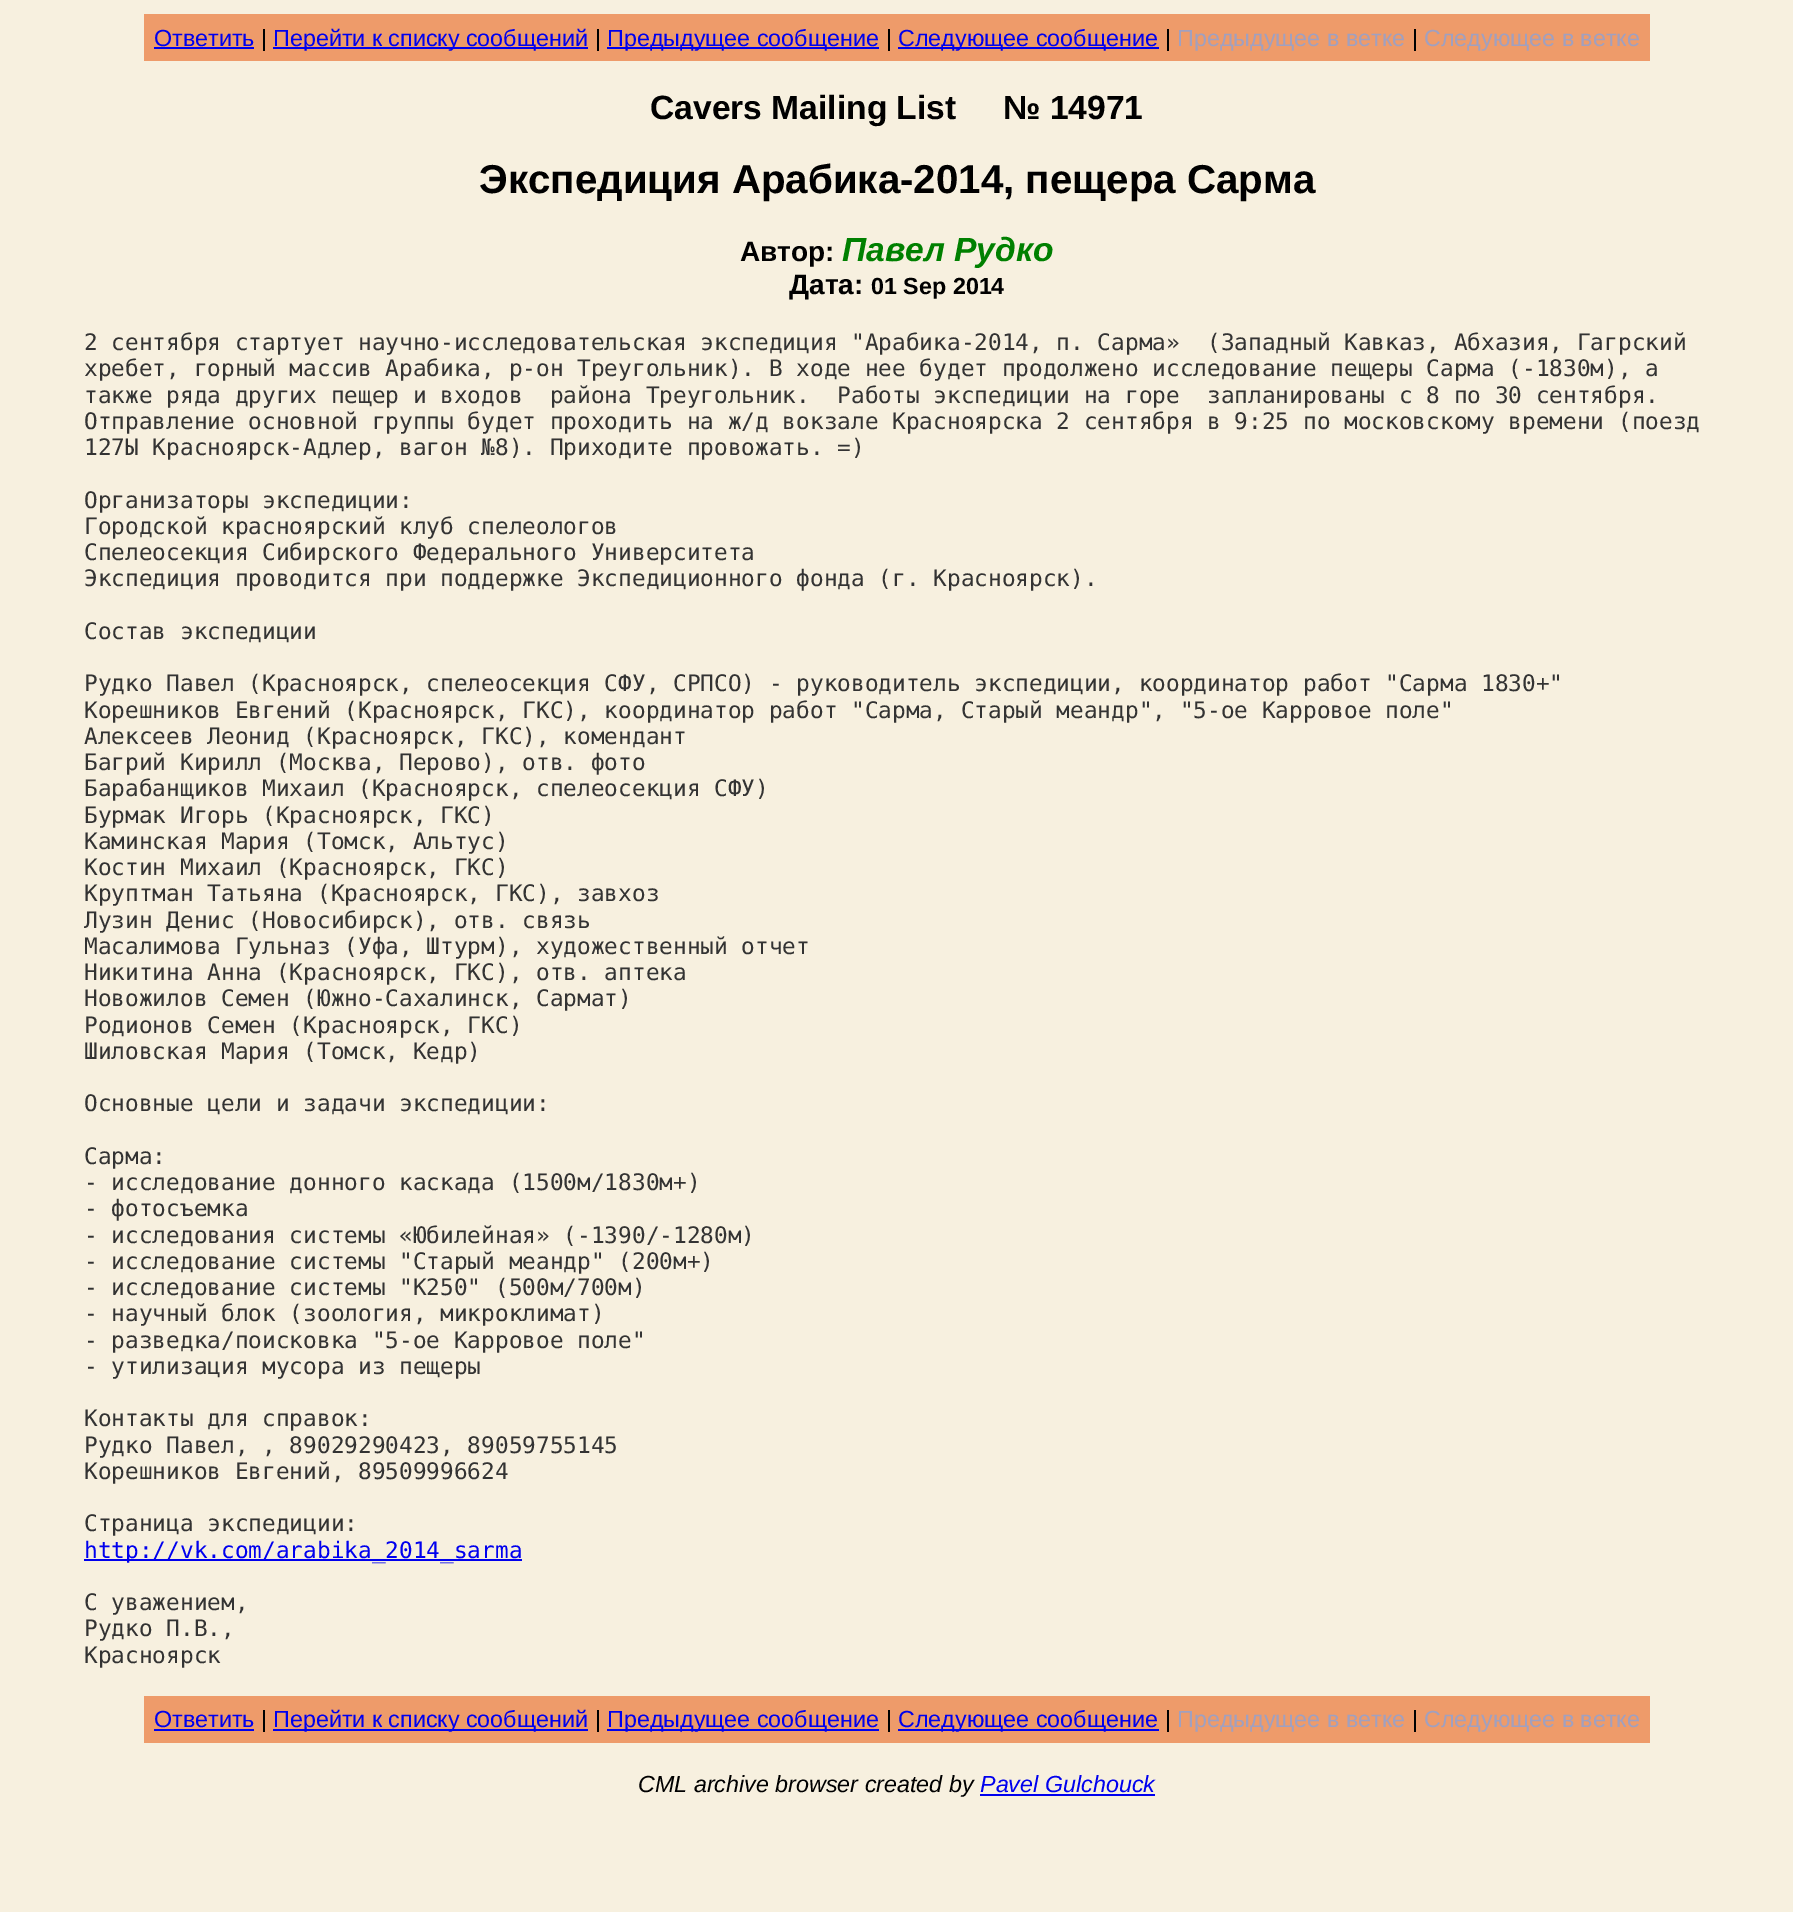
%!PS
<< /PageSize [1793 1912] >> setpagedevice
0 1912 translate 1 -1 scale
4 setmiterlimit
0.969 0.941 0.875 setrgbcolor
0 0 1793 1912 rectfill
0.933 0.608 0.416 setrgbcolor
144 14 1506 47 rectfill
/LiberationSans-Regular [23.3 0 0 -23.3 0 0] selectfont
0 0 0.933 setrgbcolor
154 46 moveto (Ответить) show
154 47 100 2 rectfill
0 setgray
261 46 moveto (|) show
0 0 0.933 setrgbcolor
273 47 315 2 rectfill
273 46 moveto (Перейти к списку сообщений) show
0 setgray
595 46 moveto (|) show
0 0 0.933 setrgbcolor
607 47 272 2 rectfill
607 46 moveto (Предыдущее сообщение) show
0 setgray
886 46 moveto (|) show
0 0 0.933 setrgbcolor
898 47 261 2 rectfill
898 46 moveto (Следующее сообщение) show
0 setgray
1165 46 moveto (|) show
0.627 0.627 0.753 setrgbcolor
1177 46 moveto (Предыдущее в ветке) show
0 setgray
1412 46 moveto (|) show
0.627 0.627 0.753 setrgbcolor
1424 46 moveto (Следующее в ветке) show
/LiberationSans-Bold [33.6 0 0 -33.6 0 0] selectfont
0 setgray
650 119 moveto (Cavers Mailing List     № 14971) show
/LiberationSans-Bold [40.3 0 0 -40.3 0 0] selectfont
479 193 moveto (Экспедиция Арабика-2014, пещера Сарма) show
/LiberationSans-Bold [28 0 0 -28 0 0] selectfont
740 261 moveto (Автор:) show
/LiberationSans-BoldItalic [33.6 0 0 -33.6 0 0] selectfont
0 0.502 0 setrgbcolor
842 261 moveto (Павел Рудко) show
/LiberationSans-Bold [28 0 0 -28 0 0] selectfont
0 setgray
789 294 moveto (Дата:) show
/LiberationSans-Bold [23.3 0 0 -23.3 0 0] selectfont
871 294 moveto (01 Sep 2014) show
/DejaVuSansMono-Regular [22.75 0 0 -22.75 0 0] selectfont
0.2 setgray
84 350 moveto (2 сентября стартует научно-исследовательская экспедиция "Арабика-2014, п. Сарма»  \(Западный Кавказ, Абхазия, Гагрский) show
84 376 moveto (хребет, горный массив Арабика, р-он Треугольник\). В ходе нее будет продолжено исследование пещеры Сарма \(-1830м\), а) show
84 403 moveto (также ряда других пещер и входов  района Треугольник.  Работы экспедиции на горе  запланированы с 8 по 30 сентября.) show
84 429 moveto (Отправление основной группы будет проходить на ж/д вокзале Красноярска 2 сентября в 9:25 по московскому времени \(поезд) show
84 455 moveto (127Ы Красноярск-Адлер, вагон №8\). Приходите провожать. =\)) show
84 508 moveto (Организаторы экспедиции:) show
84 534 moveto (Городской красноярский клуб спелеологов) show
84 560 moveto (Спелеосекция Сибирского Федерального Университета) show
84 586 moveto (Экспедиция проводится при поддержке Экспедиционного фонда \(г. Красноярск\).) show
84 639 moveto (Состав экспедиции) show
84 691 moveto (Рудко Павел \(Красноярск, спелеосекция СФУ, СРПСО\) - руководитель экспедиции, координатор работ "Сарма 1830+") show
84 718 moveto (Корешников Евгений \(Красноярск, ГКС\), координатор работ "Сарма, Старый меандр", "5-ое Карровое поле") show
84 744 moveto (Алексеев Леонид \(Красноярск, ГКС\), комендант) show
84 770 moveto (Багрий Кирилл \(Москва, Перово\), отв. фото) show
84 796 moveto (Барабанщиков Михаил \(Красноярск, спелеосекция СФУ\)) show
84 823 moveto (Бурмак Игорь \(Красноярск, ГКС\)) show
84 849 moveto (Каминская Мария \(Томск, Альтус\)) show
84 875 moveto (Костин Михаил \(Красноярск, ГКС\)) show
84 901 moveto (Круптман Татьяна \(Красноярск, ГКС\), завхоз) show
84 928 moveto (Лузин Денис \(Новосибирск\), отв. связь) show
84 954 moveto (Масалимова Гульназ \(Уфа, Штурм\), художественный отчет) show
84 980 moveto (Никитина Анна \(Красноярск, ГКС\), отв. аптека) show
84 1006 moveto (Новожилов Семен \(Южно-Сахалинск, Сармат\)) show
84 1033 moveto (Родионов Семен \(Красноярск, ГКС\)) show
84 1059 moveto (Шиловская Мария \(Томск, Кедр\)) show
84 1111 moveto (Основные цели и задачи экспедиции:) show
84 1164 moveto (Сарма:) show
84 1190 moveto (- исследование донного каскада \(1500м/1830м+\)) show
84 1216 moveto (- фотосъемка) show
84 1243 moveto (- исследования системы «Юбилейная» \(-1390/-1280м\)) show
84 1269 moveto (- исследование системы "Старый меандр" \(200м+\)) show
84 1295 moveto (- исследование системы "К250" \(500м/700м\)) show
84 1321 moveto (- научный блок \(зоология, микроклимат\)) show
84 1348 moveto (- разведка/поисковка "5-ое Карровое поле") show
84 1374 moveto (- утилизация мусора из пещеры) show
84 1426 moveto (Контакты для справок:) show
84 1453 moveto (Рудко Павел, , 89029290423, 89059755145) show
84 1479 moveto (Корешников Евгений, 89509996624) show
84 1531 moveto (Страница экспедиции:) show
0 0 0.933 setrgbcolor
84 1559 438 2 rectfill
84 1558 moveto (http://vk.com/arabika_2014_sarma) show
0.2 setgray
84 1610 moveto (С уважением,) show
84 1636 moveto (Рудко П.В.,) show
84 1663 moveto (Красноярск) show
0.933 0.608 0.416 setrgbcolor
144 1696 1506 47 rectfill
/LiberationSans-Regular [23.3 0 0 -23.3 0 0] selectfont
0 0 0.933 setrgbcolor
154 1727 moveto (Ответить) show
154 1729 100 2 rectfill
0 setgray
261 1727 moveto (|) show
0 0 0.933 setrgbcolor
273 1729 315 2 rectfill
273 1727 moveto (Перейти к списку сообщений) show
0 setgray
595 1727 moveto (|) show
0 0 0.933 setrgbcolor
607 1729 272 2 rectfill
607 1727 moveto (Предыдущее сообщение) show
0 setgray
886 1727 moveto (|) show
0 0 0.933 setrgbcolor
898 1729 261 2 rectfill
898 1727 moveto (Следующее сообщение) show
0 setgray
1165 1727 moveto (|) show
0.627 0.627 0.753 setrgbcolor
1177 1727 moveto (Предыдущее в ветке) show
0 setgray
1412 1727 moveto (|) show
0.627 0.627 0.753 setrgbcolor
1424 1727 moveto (Следующее в ветке) show
/LiberationSans-Italic [23.3 0 0 -23.3 0 0] selectfont
0 setgray
638 1792 moveto (CML archive browser created by) show
0 0 0.933 setrgbcolor
980 1794 175 2 rectfill
980 1792 moveto (Pavel Gulchouck) show
showpage
